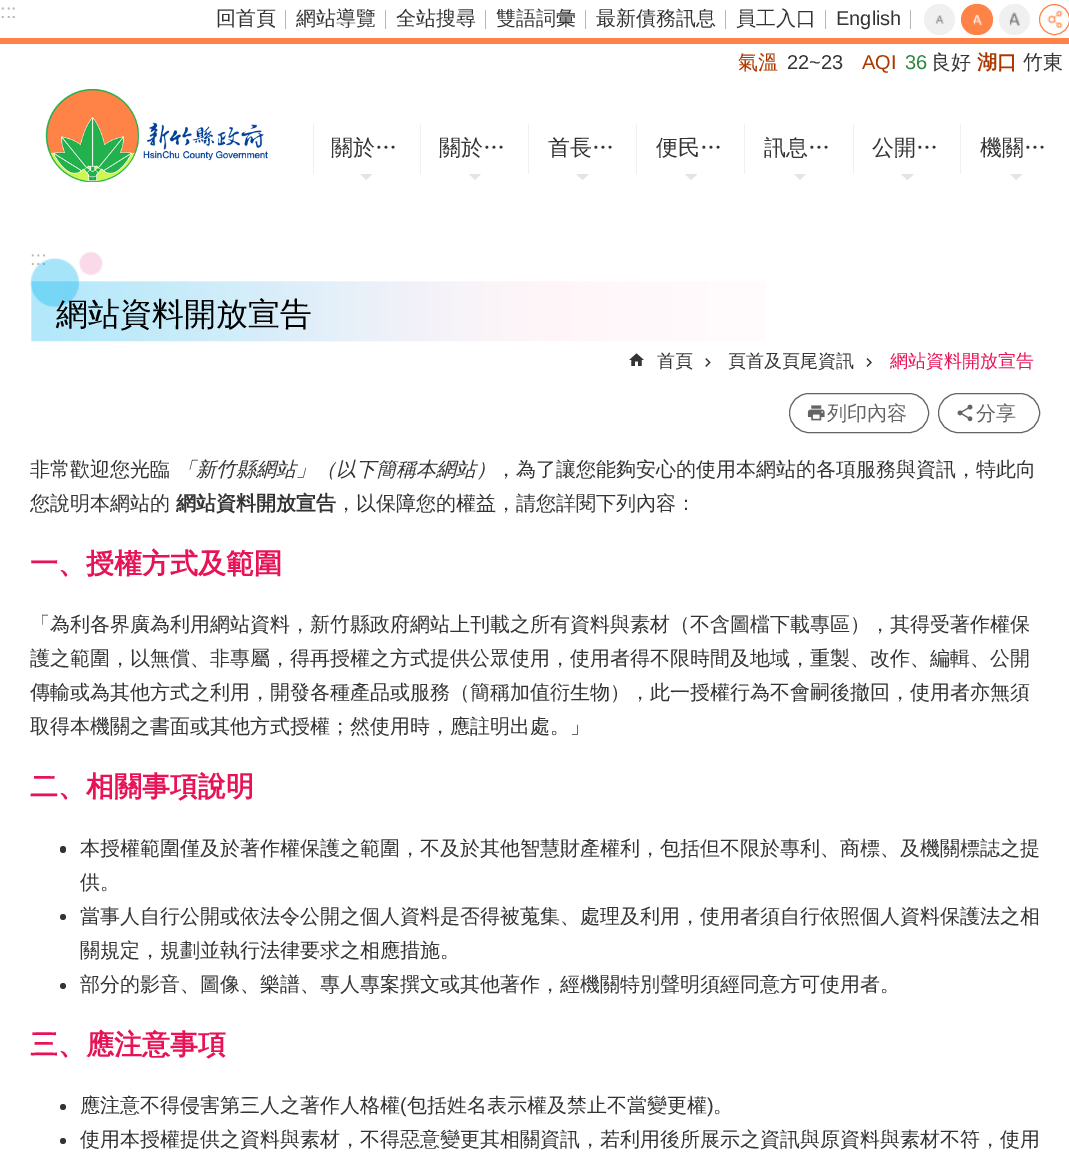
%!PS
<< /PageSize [1069 1153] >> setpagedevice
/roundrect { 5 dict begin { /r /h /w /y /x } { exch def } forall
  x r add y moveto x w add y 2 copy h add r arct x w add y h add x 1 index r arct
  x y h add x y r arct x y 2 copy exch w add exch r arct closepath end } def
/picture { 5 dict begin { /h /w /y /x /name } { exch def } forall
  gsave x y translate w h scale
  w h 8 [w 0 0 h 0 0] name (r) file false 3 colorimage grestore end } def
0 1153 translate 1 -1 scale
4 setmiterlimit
1 setgray
0 0 1069 1153 rectfill
1 0.514 0.275 setrgbcolor
0 38 1069 6 rectfill
/LiberationSans-Regular [20 0 0 -20 0 0] selectfont
0.714 setgray
0 18 moveto (:::) show
/WenQuanYiZenHei-Medium [20 0 0 -20 0 0] selectfont
0.204 setgray
216 25 moveto (回首頁) show
0.714 setgray
285 10 1 19 rectfill
0.204 setgray
296 25 moveto (網站導覽) show
0.714 setgray
385 10 1 19 rectfill
0.204 setgray
396 25 moveto (全站搜尋) show
0.714 setgray
485 10 1 19 rectfill
0.204 setgray
496 25 moveto (雙語詞彙) show
0.714 setgray
585 10 1 19 rectfill
0.204 setgray
596 25 moveto (最新債務訊息) show
0.714 setgray
725 10 1 19 rectfill
0.204 setgray
736 25 moveto (員工入口) show
0.714 setgray
825 10 1 19 rectfill
/LiberationSans-Regular [20 0 0 -20 0 0] selectfont
0.204 setgray
836 25 moveto (English) show
0.714 setgray
910 10 1 19 rectfill
0.941 setgray
newpath 939.5 19.5 15.5 0 360 arc closepath fill
(img1.rgb) 935 15 9 9 picture
1 0.514 0.275 setrgbcolor
961 4 32 31 15.5 roundrect fill
(img2.rgb) 973 14 10 12 picture
0.941 setgray
newpath 1014.5 19.5 15.5 0 360 arc closepath fill
(img3.rgb) 1009 12 11 15 picture
(img4.rgb) 1047 10 16 19 picture
1 0.514 0.275 setrgbcolor
newpath 1054.5 19.5 15 0 360 arc closepath stroke
/WenQuanYiZenHei-Medium [20 0 0 -20 0 0] selectfont
0.675 0.224 0 setrgbcolor
738 69 moveto (氣溫) show
/LiberationSans-Regular [20 0 0 -20 0 0] selectfont
0.204 setgray
787 69 moveto (22~23) show
0.675 0.224 0 setrgbcolor
862 69 moveto (AQI) show
0.176 0.525 0.251 setrgbcolor
905 69 moveto (36) show
/WenQuanYiZenHei-Medium [20 0 0 -20 0 0] selectfont
0.204 setgray
931 69 moveto (良好) show
/WenQuanYiZenHei-Bold [20 0 0 -20 0 0] selectfont
0.675 0.224 0 setrgbcolor
977 69 moveto (湖口) show
/WenQuanYiZenHei-Medium [20 0 0 -20 0 0] selectfont
0.204 setgray
1023 69 moveto (竹東) show
(img5.rgb) 45 89 223 93 picture
0.941 setgray
313 124 1 50 rectfill
/WenQuanYiZenHei-Medium [22 0 0 -22 0 0] selectfont
0.204 setgray
331 155 moveto (關於…) show
0.894 setgray
newpath 360 174 moveto 372.5 174 lineto 366 180 lineto closepath fill
0.941 setgray
420 124 1 50 rectfill
0.204 setgray
439 155 moveto (關於…) show
0.894 setgray
newpath 469 174 moveto 481 174 lineto 475 180 lineto closepath fill
0.941 setgray
528 124 1 50 rectfill
0.204 setgray
548 155 moveto (首長…) show
0.894 setgray
newpath 576 174 moveto 589 174 lineto 582.5 180 lineto closepath fill
0.941 setgray
636 124 1 50 rectfill
0.204 setgray
656 155 moveto (便民…) show
0.894 setgray
newpath 685 174 moveto 697.5 174 lineto 691 180 lineto closepath fill
0.941 setgray
744 124 1 50 rectfill
0.204 setgray
764 155 moveto (訊息…) show
0.894 setgray
newpath 794 174 moveto 806 174 lineto 800 180 lineto closepath fill
0.941 setgray
853 124 1 50 rectfill
0.204 setgray
872 155 moveto (公開…) show
0.894 setgray
newpath 901 174 moveto 914 174 lineto 907.5 180 lineto closepath fill
0.941 setgray
960 124 1 50 rectfill
0.204 setgray
980 155 moveto (機關…) show
0.894 setgray
newpath 1010 174 moveto 1022.5 174 lineto 1016 180 lineto closepath fill
/LiberationSans-Regular [20 0 0 -20 0 0] selectfont
0.714 setgray
30 265 moveto (:::) show
(img6.rgb) 30 251 736 91 picture
/WenQuanYiZenHei-Medium [32 0 0 -32 0 0] selectfont
0 setgray
56 325 moveto (網站資料開放宣告) show
(img7.rgb) 629 353 15 13 picture
/WenQuanYiZenHei-Medium [18 0 0 -18 0 0] selectfont
0.204 setgray
657 367 moveto (首頁) show
(img8.rgb) 705 358 6 9 picture
728 367 moveto (頁首及頁尾資訊) show
(img9.rgb) 866 358 6 9 picture
0.906 0.075 0.337 setrgbcolor
890 367 moveto (網站資料開放宣告) show
0.392 setgray
789.5 393.5 139 39 19.5 roundrect stroke
(img10.rgb) 807 405 18 16 picture
/WenQuanYiZenHei-Medium [20 0 0 -20 0 0] selectfont
827 420 moveto (列印內容) show
938.5 393.5 101 39 19.5 roundrect stroke
(img11.rgb) 957 404 16 18 picture
976 420 moveto (分享) show
0.204 setgray
30 476 moveto (非常歡迎您光臨) show
/WenQuanYiZenHei-MediumItalic [20 0 0 -20 0 0] selectfont
176 476 moveto (「新竹縣網站」（以下簡稱本網站）) show
/WenQuanYiZenHei-Medium [20 0 0 -20 0 0] selectfont
496 476 moveto (，為了讓您能夠安心的使用本網站的各項服務與資訊，特此向) show
30 510 moveto (您說明本網站的) show
/WenQuanYiZenHei-Bold [20 0 0 -20 0 0] selectfont
176 510 moveto (網站資料開放宣告) show
/WenQuanYiZenHei-Medium [20 0 0 -20 0 0] selectfont
336 510 moveto (，以保障您的權益，請您詳閱下列內容：) show
/WenQuanYiZenHei-Bold [28 0 0 -28 0 0] selectfont
0.906 0.075 0.337 setrgbcolor
30 573 moveto (一、授權方式及範圍) show
/WenQuanYiZenHei-Medium [20 0 0 -20 0 0] selectfont
0.204 setgray
30 631 moveto (「為利各界廣為利用網站資料，新竹縣政府網站上刊載之所有資料與素材（不含圖檔下載專區），其得受著作權保) show
30 665 moveto (護之範圍，以無償、非專屬，得再授權之方式提供公眾使用，使用者得不限時間及地域，重製、改作、編輯、公開) show
30 699 moveto (傳輸或為其他方式之利用，開發各種產品或服務（簡稱加值衍生物），此一授權行為不會嗣後撤回，使用者亦無須) show
30 733 moveto (取得本機關之書面或其他方式授權；然使用時，應註明出處。」) show
/WenQuanYiZenHei-Bold [28 0 0 -28 0 0] selectfont
0.906 0.075 0.337 setrgbcolor
30 796 moveto (二、相關事項說明) show
0.204 setgray
60 846 6 7 3 roundrect fill
/WenQuanYiZenHei-Medium [20 0 0 -20 0 0] selectfont
80 855 moveto (本授權範圍僅及於著作權保護之範圍，不及於其他智慧財產權利，包括但不限於專利、商標、及機關標誌之提) show
80 889 moveto (供。) show
newpath 63 917 3 0 360 arc closepath fill
80 923 moveto (當事人自行公開或依法令公開之個人資料是否得被蒐集、處理及利用，使用者須自行依照個人資料保護法之相) show
80 957 moveto (關規定，規劃並執行法律要求之相應措施。) show
newpath 63 986 3 0 360 arc closepath fill
80 991 moveto (部分的影音、圖像、樂譜、專人專案撰文或其他著作，經機關特別聲明須經同意方可使用者。) show
/WenQuanYiZenHei-Bold [28 0 0 -28 0 0] selectfont
0.906 0.075 0.337 setrgbcolor
30 1054 moveto (三、應注意事項) show
0.204 setgray
newpath 63 1107 3 0 360 arc closepath fill
/WenQuanYiZenHei-Medium [20 0 0 -20 0 0] selectfont
80 1112 moveto (應注意不得侵害第三人之著作人格權) show
/LiberationSans-Regular [20 0 0 -20 0 0] selectfont
400 1112 moveto (\() show
/WenQuanYiZenHei-Medium [20 0 0 -20 0 0] selectfont
407 1112 moveto (包括姓名表示權及禁止不當變更權) show
/LiberationSans-Regular [20 0 0 -20 0 0] selectfont
707 1112 moveto (\)) show
/WenQuanYiZenHei-Medium [20 0 0 -20 0 0] selectfont
713 1112 moveto (。) show
newpath 63 1141 3 0 360 arc closepath fill
80 1146 moveto (使用本授權提供之資料與素材，不得惡意變更其相關資訊，若利用後所展示之資訊與原資料與素材不符，使用) show
showpage
